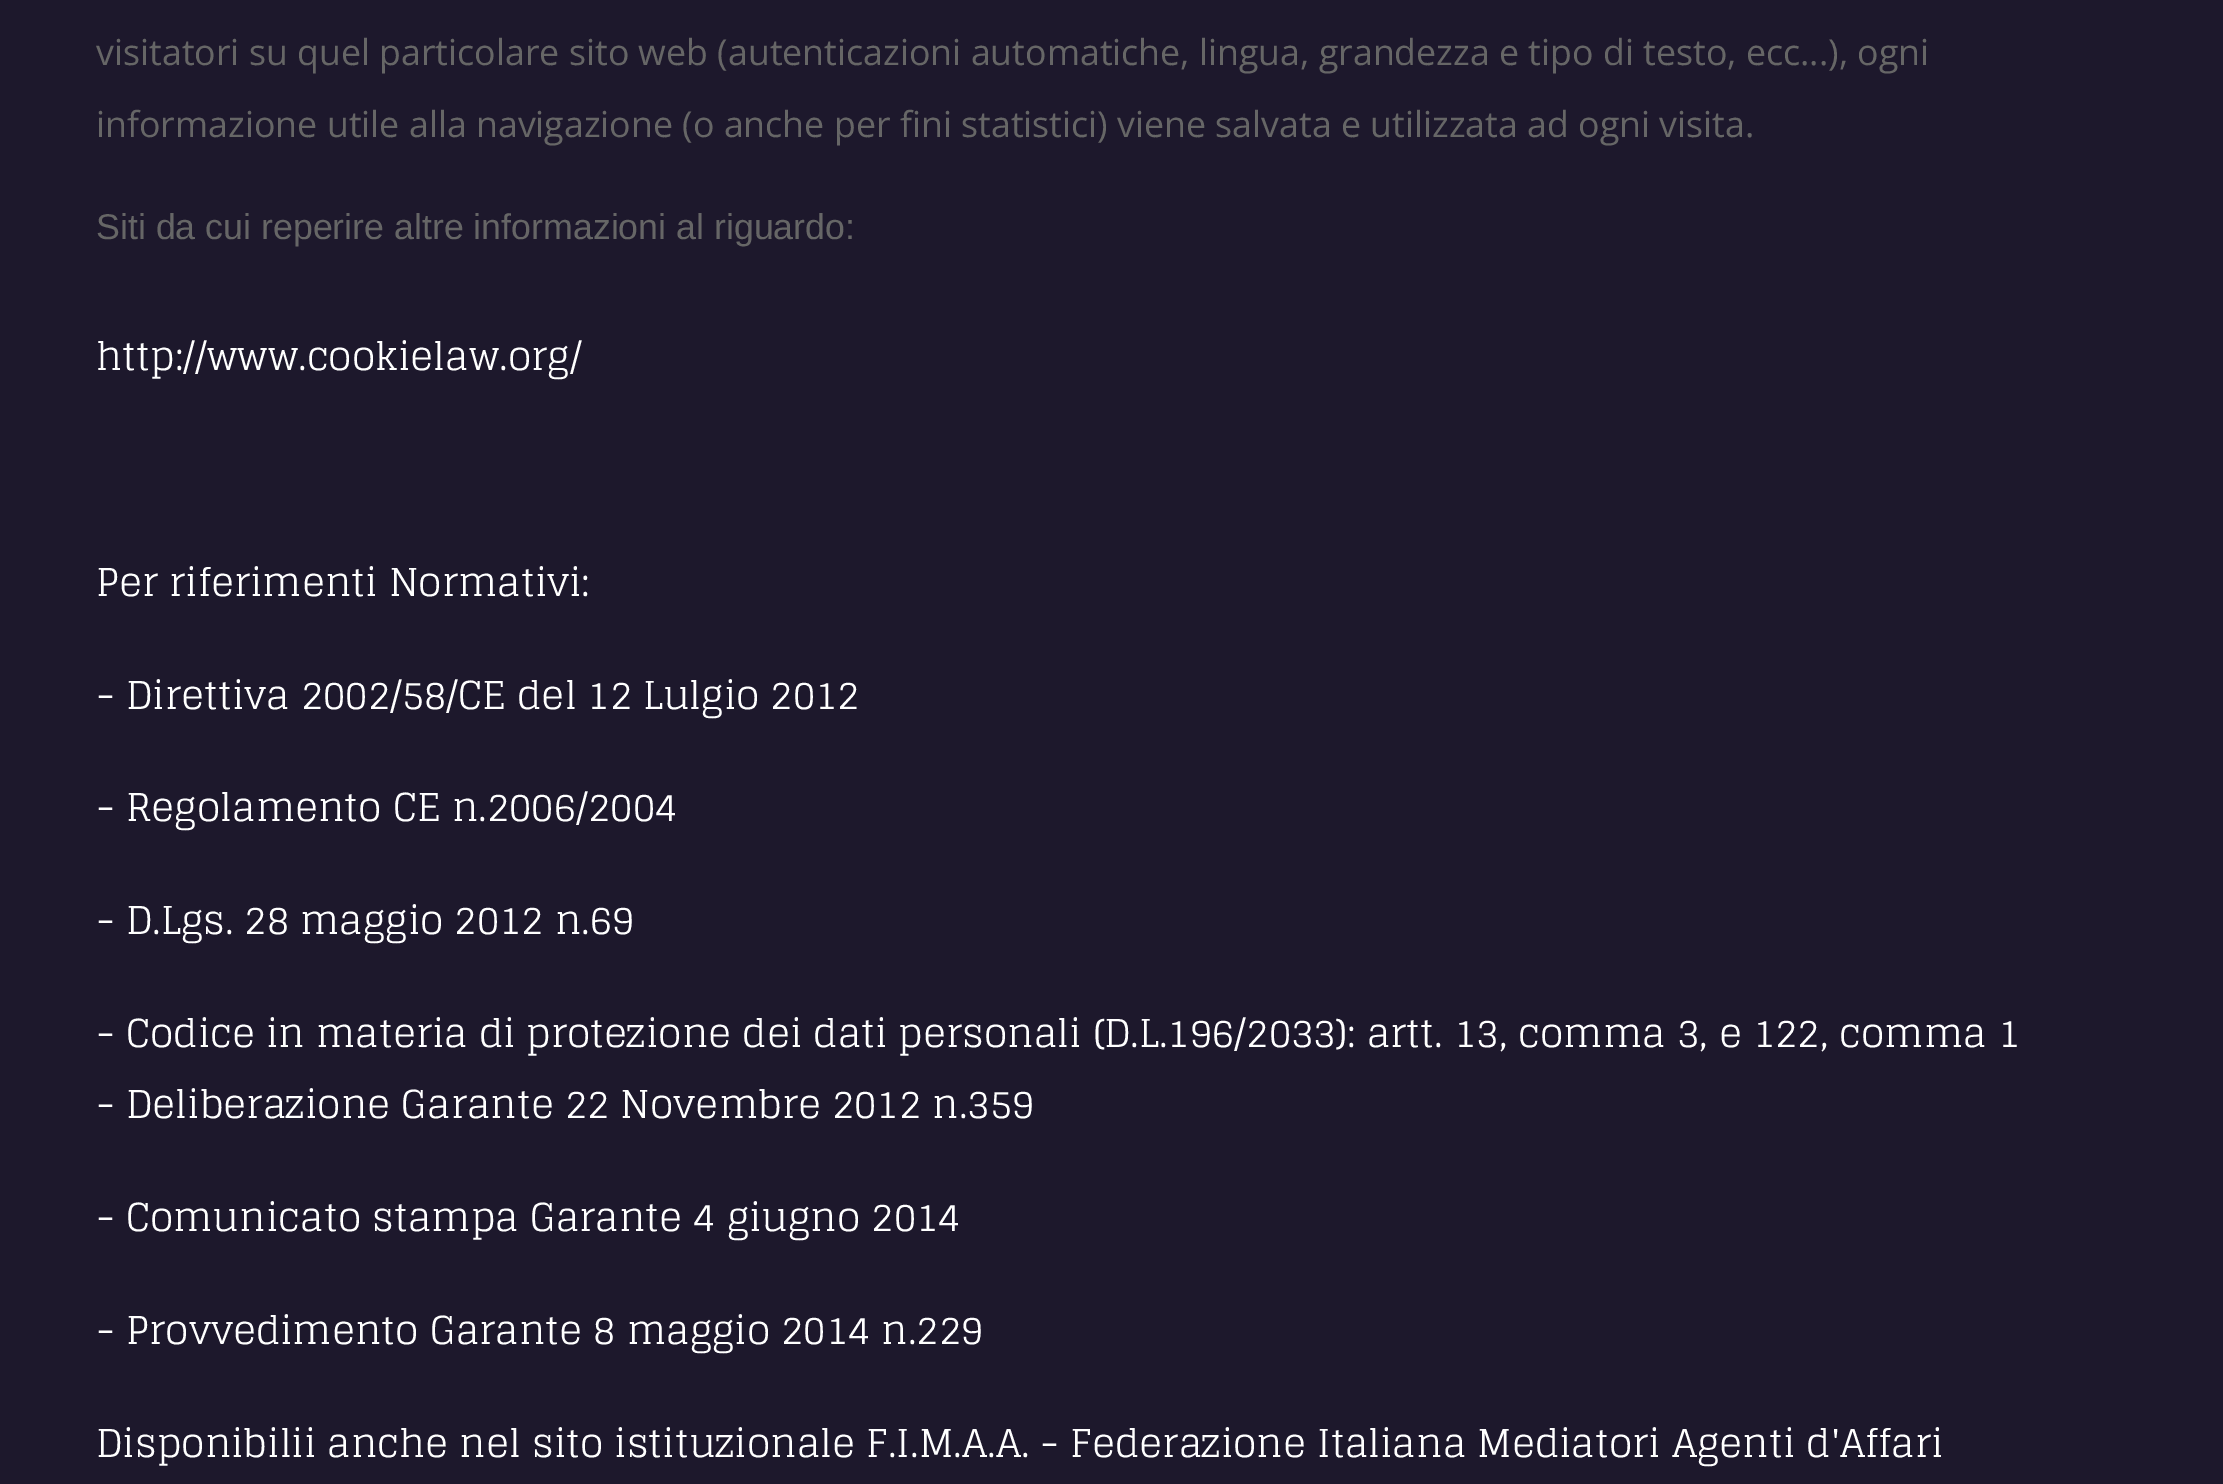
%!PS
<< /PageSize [2223 1484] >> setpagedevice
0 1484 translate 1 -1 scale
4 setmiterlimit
0.114 0.094 0.173 setrgbcolor
0 0 2223 1484 rectfill
/OpenSans-Regular [35.75 0 0 -35.75 0 0] selectfont
0.4 setgray
96 65 moveto (visitatori su quel particolare sito web \(autenticazioni automatiche, lingua, grandezza e tipo di testo, ecc...\), ogni) show
96 137 moveto (informazione utile alla navigazione \(o anche per fini statistici\) viene salvata e utilizzata ad ogni visita.) show
/LiberationSans-Regular [35.75 0 0 -35.75 0 0] selectfont
96 239 moveto (Siti da cui reperire altre informazioni al riguardo:) show
/Glegoo-Regular [38.5 0 0 -38.5 0 0] selectfont
1 setgray
96 370 moveto (http://www.cookielaw.org/) show
96 596 moveto (Per riferimenti Normativi:) show
96 709 moveto (- Direttiva 2002/58/CE del 12 Lulgio 2012) show
96 821 moveto (- Regolamento CE n.2006/2004) show
96 934 moveto (- D.Lgs. 28 maggio 2012 n.69) show
96 1047 moveto (- Codice in materia di protezione dei dati personali \(D.L.196/2033\): artt. 13, comma 3, e 122, comma 1) show
96 1118 moveto (- Deliberazione Garante 22 Novembre 2012 n.359) show
96 1231 moveto (- Comunicato stampa Garante 4 giugno 2014) show
96 1344 moveto (- Provvedimento Garante 8 maggio 2014 n.229) show
96 1457 moveto (Disponibilii anche nel sito istituzionale F.I.M.A.A. - Federazione Italiana Mediatori Agenti d'Affari) show
showpage
